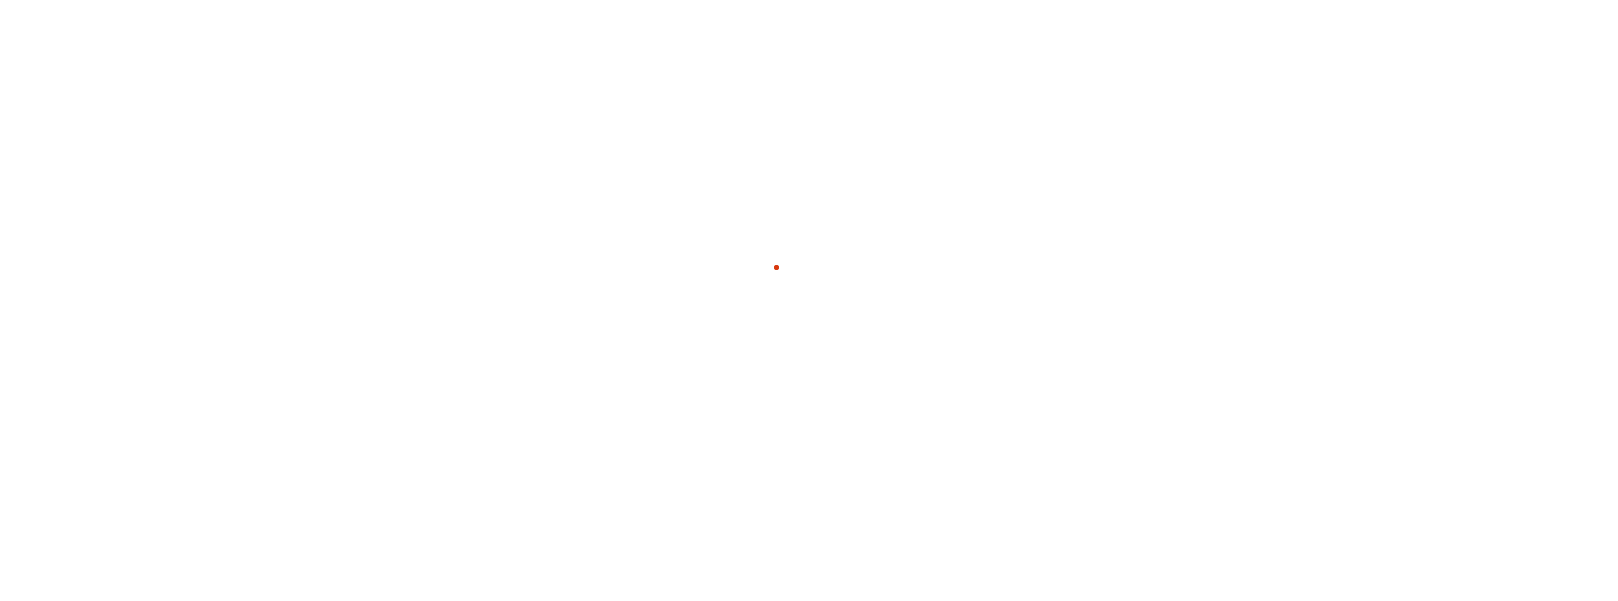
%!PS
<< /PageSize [1618 601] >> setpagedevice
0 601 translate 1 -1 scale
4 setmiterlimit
1 setgray
0 0 1618 601 rectfill
0.847 0.224 0.059 setrgbcolor
newpath 776.5 267.5 2.5 0 360 arc closepath fill
showpage
